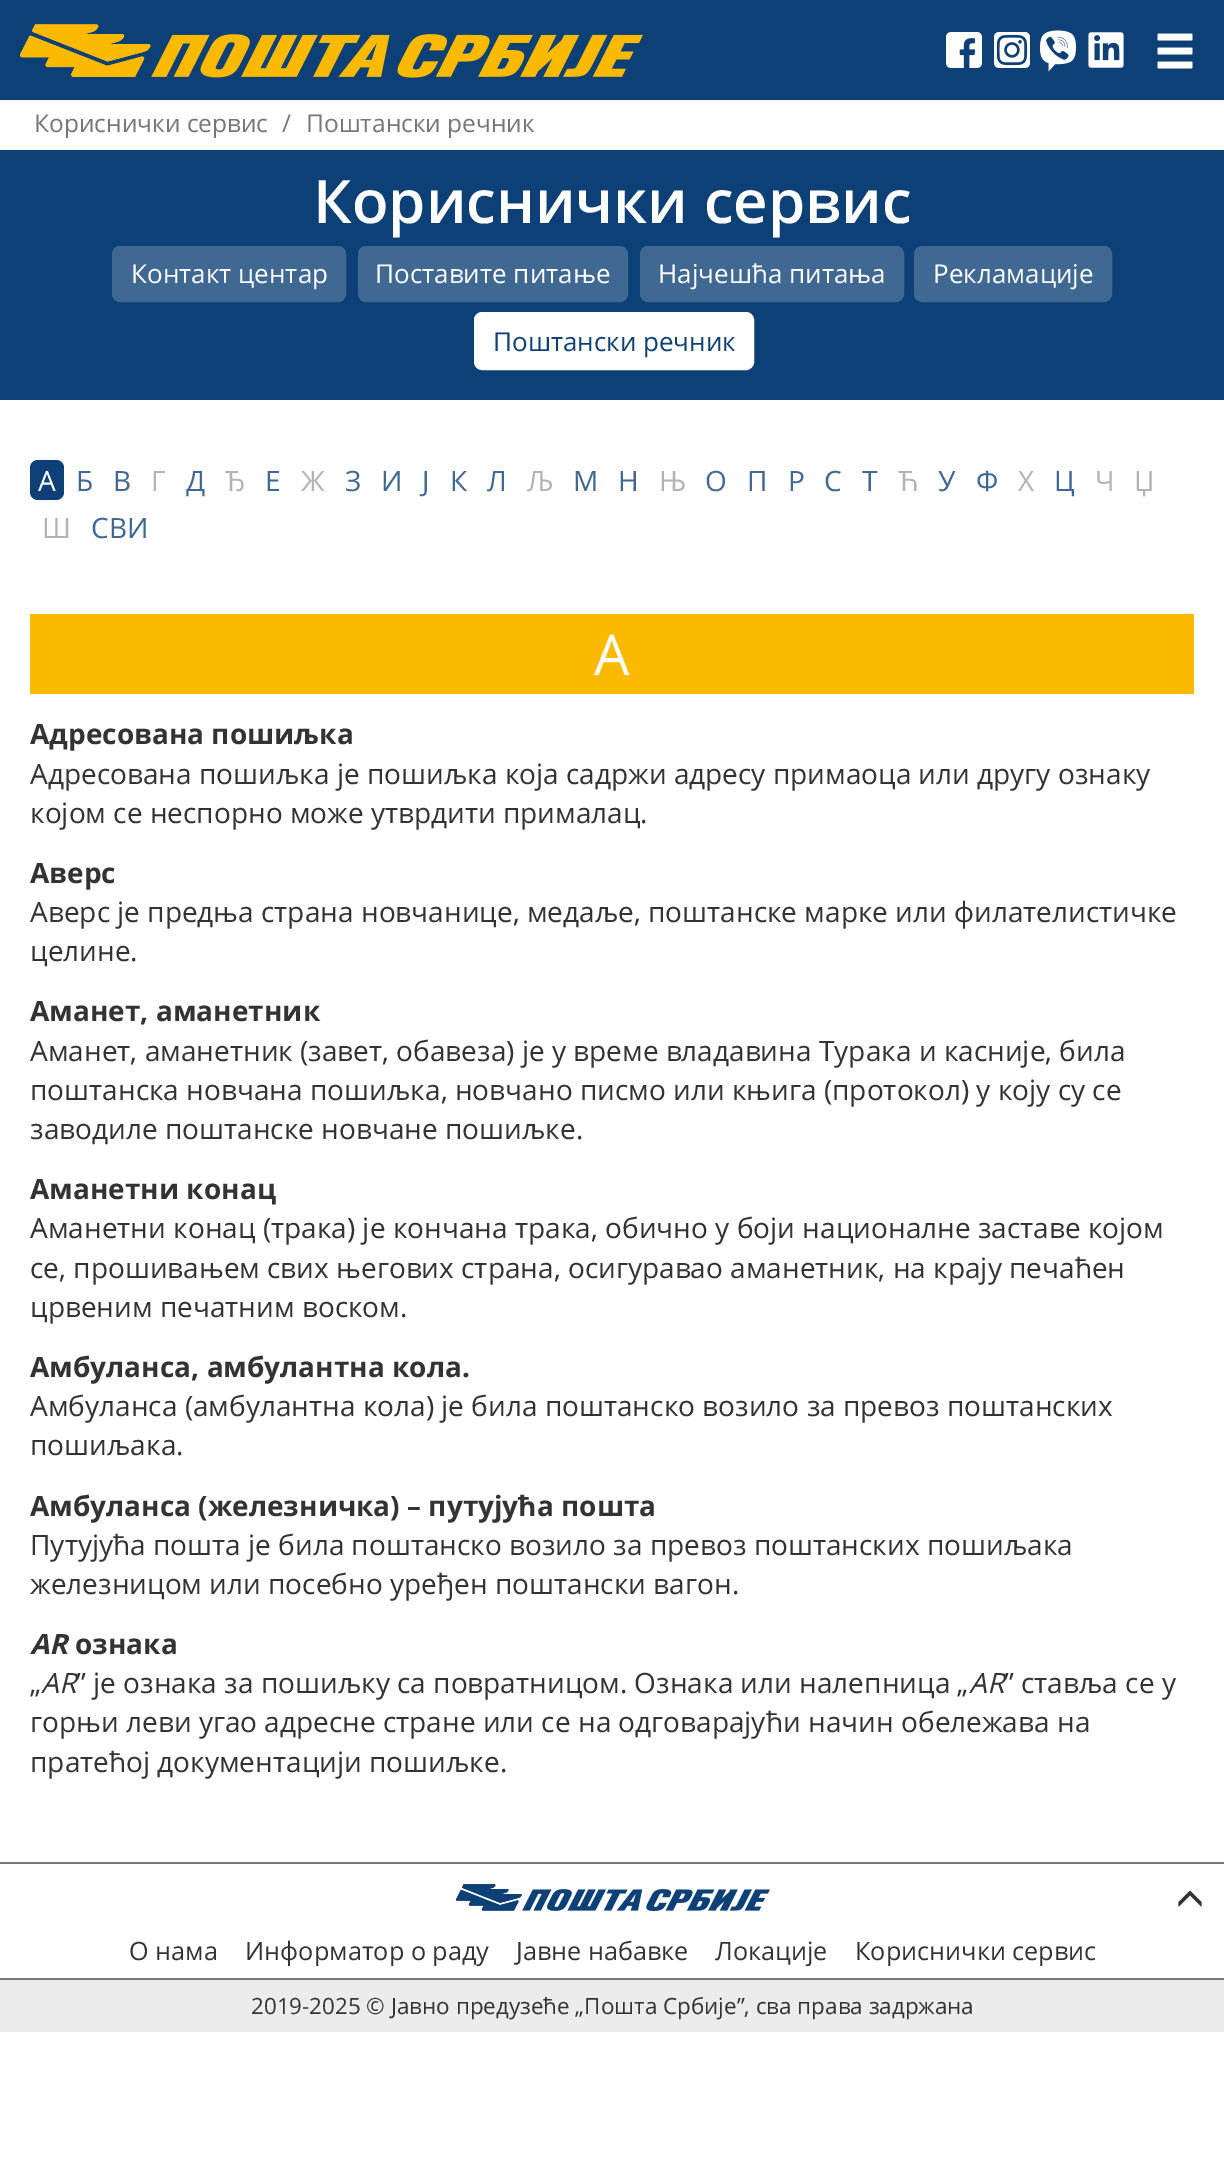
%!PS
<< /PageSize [1224 2183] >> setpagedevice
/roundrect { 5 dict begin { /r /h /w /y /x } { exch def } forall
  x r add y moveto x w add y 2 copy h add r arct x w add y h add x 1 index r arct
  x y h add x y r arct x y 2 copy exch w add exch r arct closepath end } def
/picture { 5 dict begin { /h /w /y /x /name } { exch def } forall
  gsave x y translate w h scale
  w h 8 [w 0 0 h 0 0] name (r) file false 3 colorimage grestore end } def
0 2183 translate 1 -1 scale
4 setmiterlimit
1 setgray
0 0 1224 2183 rectfill
0.047 0.251 0.463 setrgbcolor
0 0 1224 100 rectfill
(img1.rgb) 20 24 623 54 picture
(img2.rgb) 946 32 36 36 picture
(img3.rgb) 994 32 36 36 picture
(img4.rgb) 1040 30 36 42 picture
(img5.rgb) 1088 32 36 36 picture
(img6.rgb) 1157 33 36 36 picture
/OpenSans-Regular [24.5 0 0 -24.5 0 0] selectfont
0.467 setgray
34 132 moveto (Кориснички сервис) show
282 132 moveto (/) show
306 132 moveto (Поштански речник) show
0.047 0.251 0.463 setrgbcolor
0 150 1224 250 rectfill
/OpenSans-SemiBold [60 0 0 -60 0 0] selectfont
1 setgray
313 223 moveto (Кориснички сервис) show
0.247 0.408 0.576 setrgbcolor
113 247 232 54 7 roundrect gsave fill grestore
2 setlinewidth
stroke
/OpenSans-Regular [26 0 0 -26 0 0] selectfont
1 setgray
131 283 moveto (Контакт центар) show
0.247 0.408 0.576 setrgbcolor
359 247 268 54 7 roundrect gsave fill grestore
stroke
1 setgray
375 283 moveto (Поставите питање) show
0.247 0.408 0.576 setrgbcolor
641 247 262 54 7 roundrect gsave fill grestore
stroke
1 setgray
658 283 moveto (Најчешћа питања) show
0.247 0.408 0.576 setrgbcolor
915 247 196 54 7 roundrect gsave fill grestore
stroke
1 setgray
933 283 moveto (Рекламације) show
475 313 278 56 7 roundrect gsave fill grestore
stroke
0.047 0.251 0.463 setrgbcolor
493 351 moveto (Поштански речник) show
30 460 34 40 8 roundrect fill
/OpenSans-Regular [28 0 0 -28 0 0] selectfont
1 setgray
38 491 moveto (A) show
0.247 0.408 0.576 setrgbcolor
76 491 moveto (Б) show
113 491 moveto (В) show
0.702 setgray
151 491 moveto (Г) show
0.247 0.408 0.576 setrgbcolor
186 491 moveto (Д) show
0.702 setgray
225 491 moveto (Ђ) show
0.247 0.408 0.576 setrgbcolor
265 491 moveto (Е) show
0.702 setgray
301 491 moveto (Ж) show
0.247 0.408 0.576 setrgbcolor
345 491 moveto (З) show
381 491 moveto (И) show
422 491 moveto (Ј) show
450 491 moveto (К) show
487 491 moveto (Л) show
0.702 setgray
527 491 moveto (Љ) show
0.247 0.408 0.576 setrgbcolor
573 491 moveto (М) show
618 491 moveto (Н) show
0.702 setgray
659 491 moveto (Њ) show
0.247 0.408 0.576 setrgbcolor
705 491 moveto (О) show
747 491 moveto (П) show
788 491 moveto (Р) show
824 491 moveto (С) show
862 491 moveto (Т) show
0.702 setgray
898 491 moveto (Ћ) show
0.247 0.408 0.576 setrgbcolor
938 491 moveto (У) show
976 491 moveto (Ф) show
0.702 setgray
1018 491 moveto (Х) show
0.247 0.408 0.576 setrgbcolor
1054 491 moveto (Ц) show
0.702 setgray
1095 491 moveto (Ч) show
1134 491 moveto (Џ) show
42 538 moveto (Ш) show
0.247 0.408 0.576 setrgbcolor
91 538 moveto (СВИ) show
0.984 0.729 0 setrgbcolor
30 614 1164 80 rectfill
/OpenSans-Regular [56 0 0 -56 0 0] selectfont
1 setgray
594 675 moveto (A) show
/OpenSans-Bold [28 0 0 -28 0 0] selectfont
0.2 setgray
30 744 moveto (Адресована пошиљка) show
/OpenSans-Regular [28 0 0 -28 0 0] selectfont
30 784 moveto (Адресована пошиљка је пошиљка која садржи адресу примаоца или другу ознаку) show
30 823 moveto (којом се неспорно може утврдити прималац.) show
/OpenSans-Bold [28 0 0 -28 0 0] selectfont
30 883 moveto (Аверс) show
/OpenSans-Regular [28 0 0 -28 0 0] selectfont
30 922 moveto (Аверс је предња страна новчанице, медаље, поштанске марке или филателистичке) show
30 961 moveto (целине.) show
/OpenSans-Bold [28 0 0 -28 0 0] selectfont
30 1021 moveto (Аманет, аманетник) show
/OpenSans-Regular [28 0 0 -28 0 0] selectfont
30 1061 moveto (Аманет, аманетник \(завет, обавеза\) је у време владавина Турака и касније, била) show
30 1100 moveto (поштанска новчана пошиљка, новчано писмо или књига \(протокол\) у коју су се) show
30 1139 moveto (заводиле поштанске новчане пошиљке.) show
/OpenSans-Bold [28 0 0 -28 0 0] selectfont
30 1199 moveto (Аманетни конац) show
/OpenSans-Regular [28 0 0 -28 0 0] selectfont
30 1238 moveto (Аманетни конац \(трака\) је кончана трака, обично у боји националне заставе којом) show
30 1278 moveto (се, прошивањем свих његових страна, осигуравао аманетник, на крају печаћен) show
30 1317 moveto (црвеним печатним воском.) show
/OpenSans-Bold [28 0 0 -28 0 0] selectfont
30 1377 moveto (Амбуланса, амбулантна кола.) show
/OpenSans-Regular [28 0 0 -28 0 0] selectfont
30 1416 moveto (Амбуланса \(амбулантна кола\) је била поштанско возило за превоз поштанских) show
30 1455 moveto (пошиљака.) show
/OpenSans-Bold [28 0 0 -28 0 0] selectfont
30 1516 moveto (Амбуланса \(железничка\) – путујућа пошта) show
/OpenSans-Regular [28 0 0 -28 0 0] selectfont
30 1555 moveto (Путујућа пошта је била поштанско возило за превоз поштанских пoшиљака) show
30 1594 moveto (железницом или посебно уређен поштански вагон.) show
/OpenSans-BoldItalic [28 0 0 -28 0 0] selectfont
30 1654 moveto (AR) show
/OpenSans-Bold [28 0 0 -28 0 0] selectfont
75 1654 moveto (ознака) show
/OpenSans-Regular [28 0 0 -28 0 0] selectfont
30 1693 moveto („) show
/OpenSans-Italic [28 0 0 -28 0 0] selectfont
41 1693 moveto (AR) show
/OpenSans-Regular [28 0 0 -28 0 0] selectfont
76 1693 moveto (” је ознака за пошиљку са повратницом. Ознака или налепница „) show
/OpenSans-Italic [28 0 0 -28 0 0] selectfont
969 1693 moveto (AR) show
/OpenSans-Regular [28 0 0 -28 0 0] selectfont
1004 1693 moveto (” ставља се у) show
30 1732 moveto (горњи леви угао адресне стране или се на одговарајући начин обележава на) show
30 1772 moveto (пратећој документацији пошиљке.) show
0.467 setgray
0 1862 1224 2 rectfill
0 1978 1224 2 rectfill
(img7.rgb) 456 1884 314 27 picture
(img8.rgb) 1178 1890 24 17 picture
/OpenSans-Regular [25.25 0 0 -25.25 0 0] selectfont
0.2 setgray
129 1960 moveto (О нама) show
245 1960 moveto (Информатор о раду) show
516 1960 moveto (Јавне набавке) show
715 1960 moveto (Локације) show
855 1960 moveto (Кориснички сервис) show
0.925 setgray
0 1980 1224 52 rectfill
/OpenSans-Regular [22.4 0 0 -22.4 0 0] selectfont
0.2 setgray
251 2014 moveto (2019-2025 © Јавно предузеће „Пошта Србије”, сва права задржана) show
showpage
